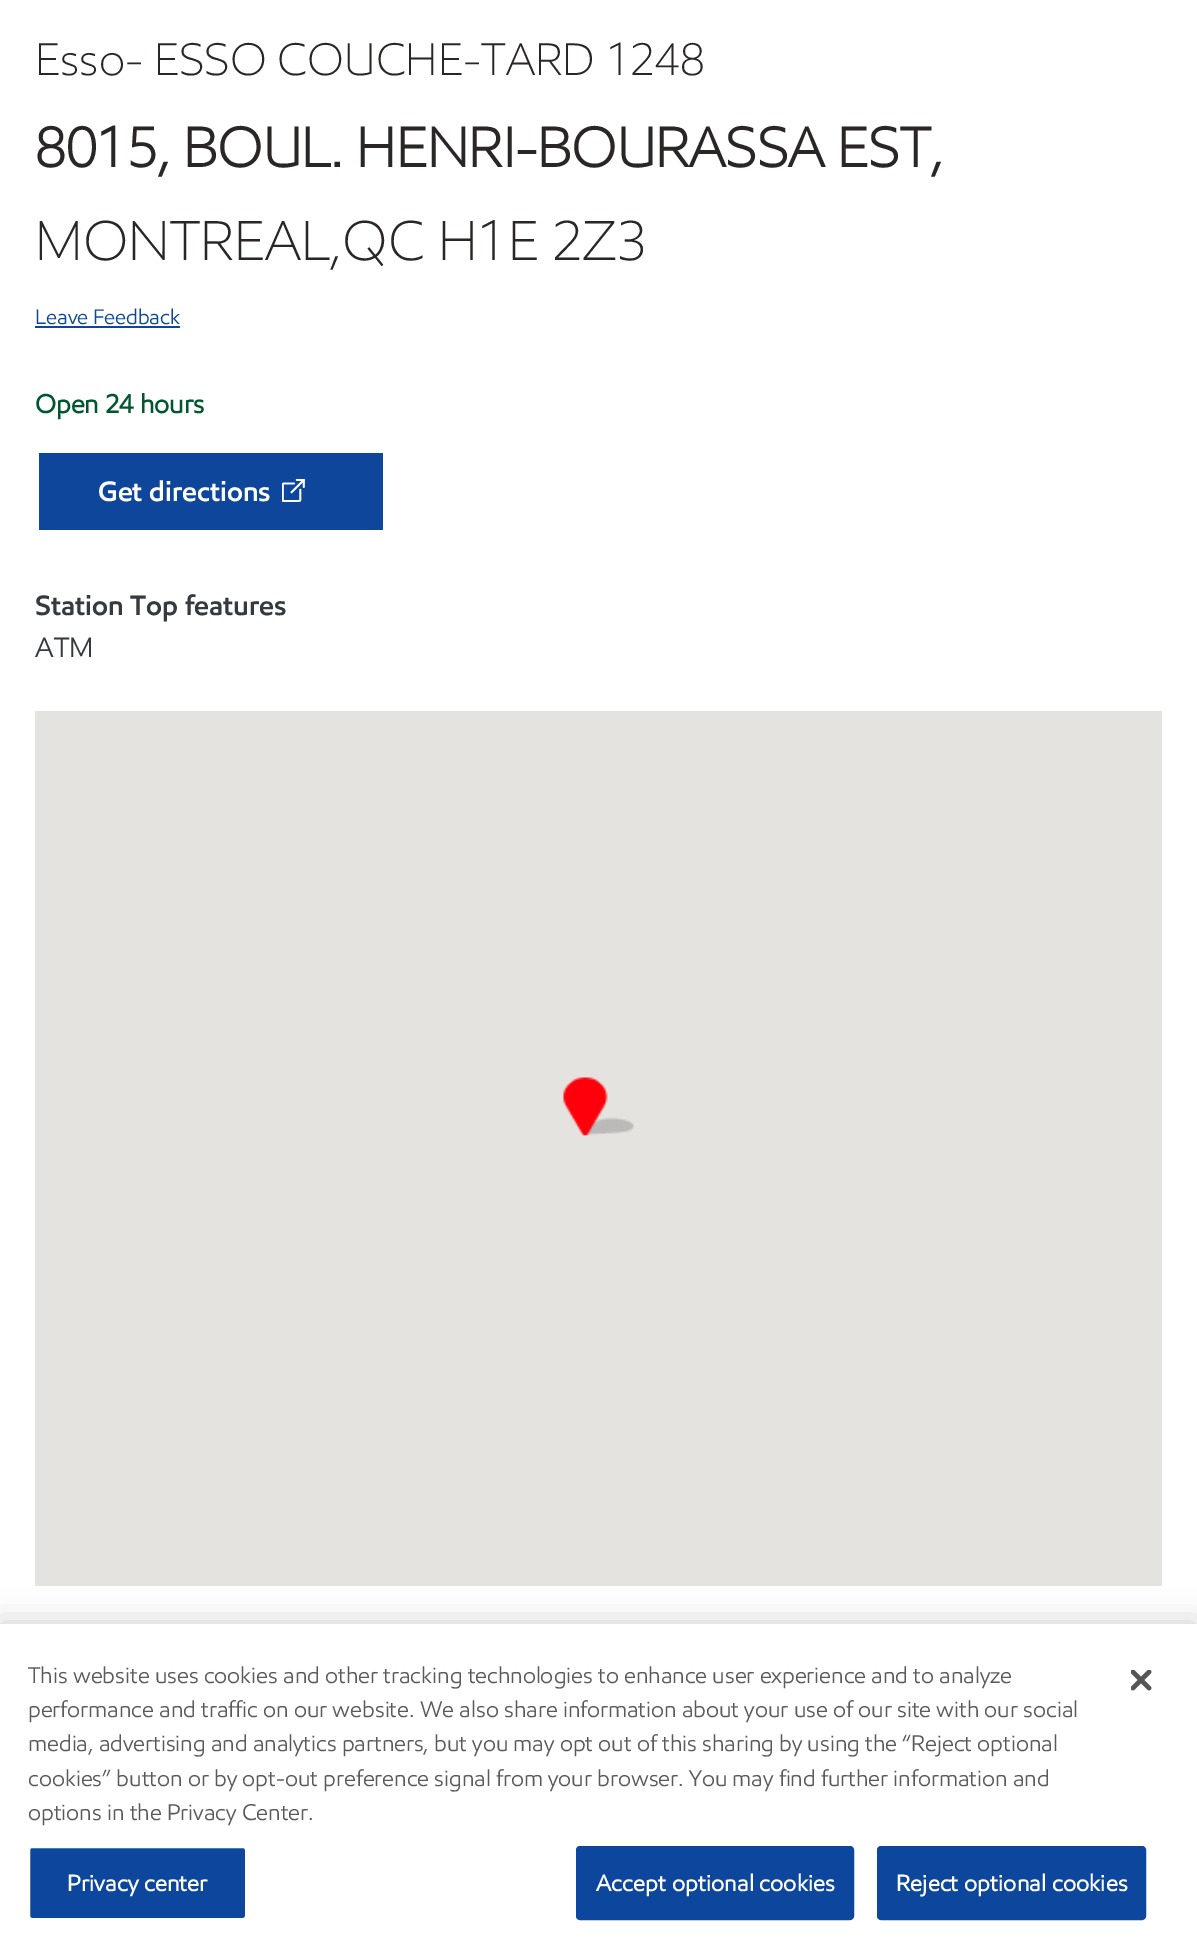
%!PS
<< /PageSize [1197 1954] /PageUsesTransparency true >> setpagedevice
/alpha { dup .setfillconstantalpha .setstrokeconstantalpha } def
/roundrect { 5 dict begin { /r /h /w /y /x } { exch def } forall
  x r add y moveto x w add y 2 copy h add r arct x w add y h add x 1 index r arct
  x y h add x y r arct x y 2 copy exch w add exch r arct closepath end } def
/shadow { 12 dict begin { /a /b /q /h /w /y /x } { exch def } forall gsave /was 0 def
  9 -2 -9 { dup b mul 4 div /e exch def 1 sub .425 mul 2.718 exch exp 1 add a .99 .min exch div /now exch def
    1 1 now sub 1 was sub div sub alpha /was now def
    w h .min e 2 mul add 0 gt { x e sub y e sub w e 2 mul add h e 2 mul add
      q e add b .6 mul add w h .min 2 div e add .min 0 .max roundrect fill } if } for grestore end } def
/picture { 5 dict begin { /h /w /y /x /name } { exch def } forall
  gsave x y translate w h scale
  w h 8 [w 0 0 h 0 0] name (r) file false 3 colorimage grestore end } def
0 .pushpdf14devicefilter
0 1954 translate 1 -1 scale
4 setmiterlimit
1 setgray
0 0 1197 1954 rectfill
/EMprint-Light [45.5 0 0 -45.5 0 0] selectfont
0.169 0.149 0.149 setrgbcolor
35 75 moveto (Esso- ESSO COUCHE-TARD 1248) show
/EMprint-Bold [56 0 0 -56 0 0] selectfont
35 167 moveto (8015, BOUL. HENRI-BOURASSA EST,) show
/EMprint-Light [56 0 0 -56 0 0] selectfont
35 260 moveto (MONTREAL,QC H1E 2Z3) show
/EMprint-Regular [21 0 0 -21 0 0] selectfont
0.047 0.278 0.616 setrgbcolor
35 324 moveto (Leave Feedback) show
35 326 145 2 rectfill
/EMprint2-Bold [26.25 0 0 -26.25 0 0] selectfont
0 0.341 0.176 setrgbcolor
35 413 moveto (Open 24 hours) show
0.055 0.275 0.608 setrgbcolor
39 453 344 77 rectfill
/EMprint-SemiBold [28 0 0 -28 0 0] selectfont
1 setgray
98 501 moveto (Get directions) show
(img1.rgb) 282 479 23 23 picture
0.204 0.227 0.251 setrgbcolor
35 615 moveto (Station Top features) show
/EMprint-Regular [28 0 0 -28 0 0] selectfont
35 657 moveto (ATM) show
0.898 0.89 0.875 setrgbcolor
35 711 1127 875 rectfill
(img2.rgb) 563 1077 71 59 picture
0 setgray
0 1624 1197 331 0 16 0.2 shadow
1 setgray
0 1624 1197 330 rectfill
/EMprint-Regular [22.75 0 0 -22.75 0 0] selectfont
0.353 setgray
28 1683 moveto (This website uses cookies and other tracking technologies to enhance user experience and to analyze) show
28 1717 moveto (performance and traffic on our website. We also share information about your use of our site with our social) show
28 1751 moveto (media, advertising and analytics partners, but you may opt out of this sharing by using the “Reject optional) show
28 1786 moveto (cookies” button or by opt-out preference signal from your browser. You may find further information and) show
28 1820 moveto (options in the Privacy Center.) show
0.047 0.278 0.616 setrgbcolor
29 1847 217 72 3 roundrect gsave fill grestore
1 setgray
2 setlinewidth
stroke
/EMprint2-Bold [22.75 0 0 -22.75 0 0] selectfont
67 1891 moveto 0.25 0 (Privacy center) ashow
0.047 0.278 0.616 setrgbcolor
577 1847 276 72 3 roundrect gsave fill grestore
stroke
1 setgray
596 1891 moveto 0.25 0 (Accept optional cookies) ashow
0.047 0.278 0.616 setrgbcolor
878 1847 267 72 3 roundrect gsave fill grestore
stroke
1 setgray
896 1891 moveto 0.25 0 (Reject optional cookies) ashow
(img3.rgb) 1131 1670 21 21 picture
.poppdf14devicefilter showpage
